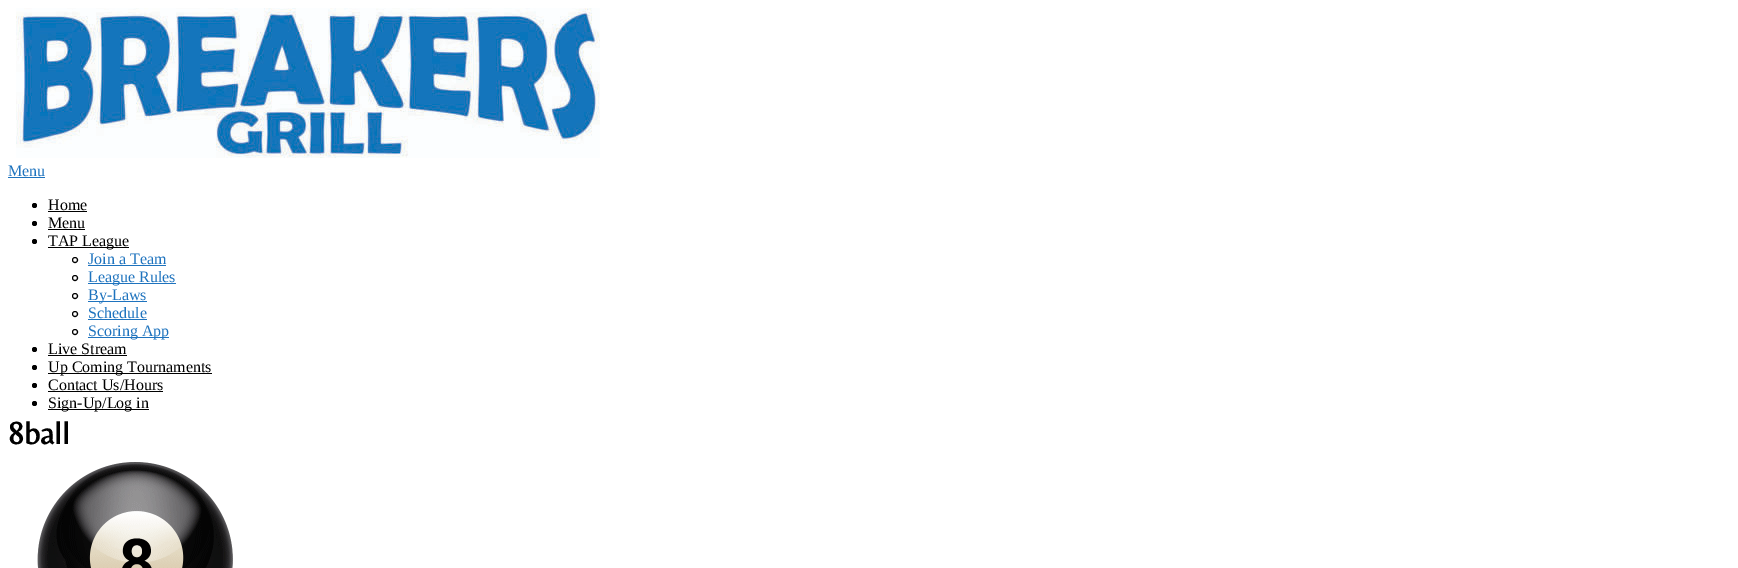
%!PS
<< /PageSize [1738 568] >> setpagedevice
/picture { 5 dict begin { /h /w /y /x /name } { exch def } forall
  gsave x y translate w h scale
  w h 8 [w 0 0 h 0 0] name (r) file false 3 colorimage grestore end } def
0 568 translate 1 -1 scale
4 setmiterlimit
1 setgray
0 0 1738 568 rectfill
(img1.rgb) 16 8 584 150 picture
/LiberationSerif-Regular [16 0 0 -16 0 0] selectfont
0.118 0.451 0.745 setrgbcolor
8 176 moveto (Menu) show
8 177 37 1 rectfill
0 setgray
newpath 34.5 205.5 2.5 0 360 arc closepath fill
48 210 moveto (Home) show
48 211 39 1 rectfill
newpath 34.5 223.5 2.5 0 360 arc closepath fill
48 228 moveto (Menu) show
48 229 37 1 rectfill
newpath 34.5 241.5 2.5 0 360 arc closepath fill
48 247 81 1 rectfill
48 246 moveto (TAP League) show
newpath 75 260 2.5 0 360 arc closepath stroke
0.118 0.451 0.745 setrgbcolor
88 264 moveto (Join a Team) show
88 265 78 1 rectfill
0 setgray
newpath 75 278 2.5 0 360 arc closepath stroke
0.118 0.451 0.745 setrgbcolor
88 283 88 1 rectfill
88 282 moveto (League Rules) show
0 setgray
newpath 75 296 2.5 0 360 arc closepath stroke
0.118 0.451 0.745 setrgbcolor
88 301 59 1 rectfill
88 300 moveto (By-Laws) show
0 setgray
newpath 75 314 2.5 0 360 arc closepath stroke
0.118 0.451 0.745 setrgbcolor
88 318 moveto (Schedule) show
88 319 59 1 rectfill
0 setgray
newpath 75 332 2.5 0 360 arc closepath stroke
0.118 0.451 0.745 setrgbcolor
88 337 81 1 rectfill
88 336 moveto (Scoring App) show
0 setgray
newpath 34.5 349.5 2.5 0 360 arc closepath fill
48 354 moveto (Live Stream) show
48 355 79 1 rectfill
newpath 34.5 367.5 2.5 0 360 arc closepath fill
48 373 164 1 rectfill
48 372 moveto (Up Coming Tournaments) show
newpath 34.5 385.5 2.5 0 360 arc closepath fill
48 390 moveto (Contact Us/Hours) show
48 391 115 1 rectfill
newpath 34.5 403.5 2.5 0 360 arc closepath fill
48 409 101 1 rectfill
48 408 moveto (Sign-Up/Log in) show
/Belleza-Bold [32 0 0 -32 0 0] selectfont
8 444 moveto (8ball) show
(img2.rgb) 37 462 196 106 picture
showpage
